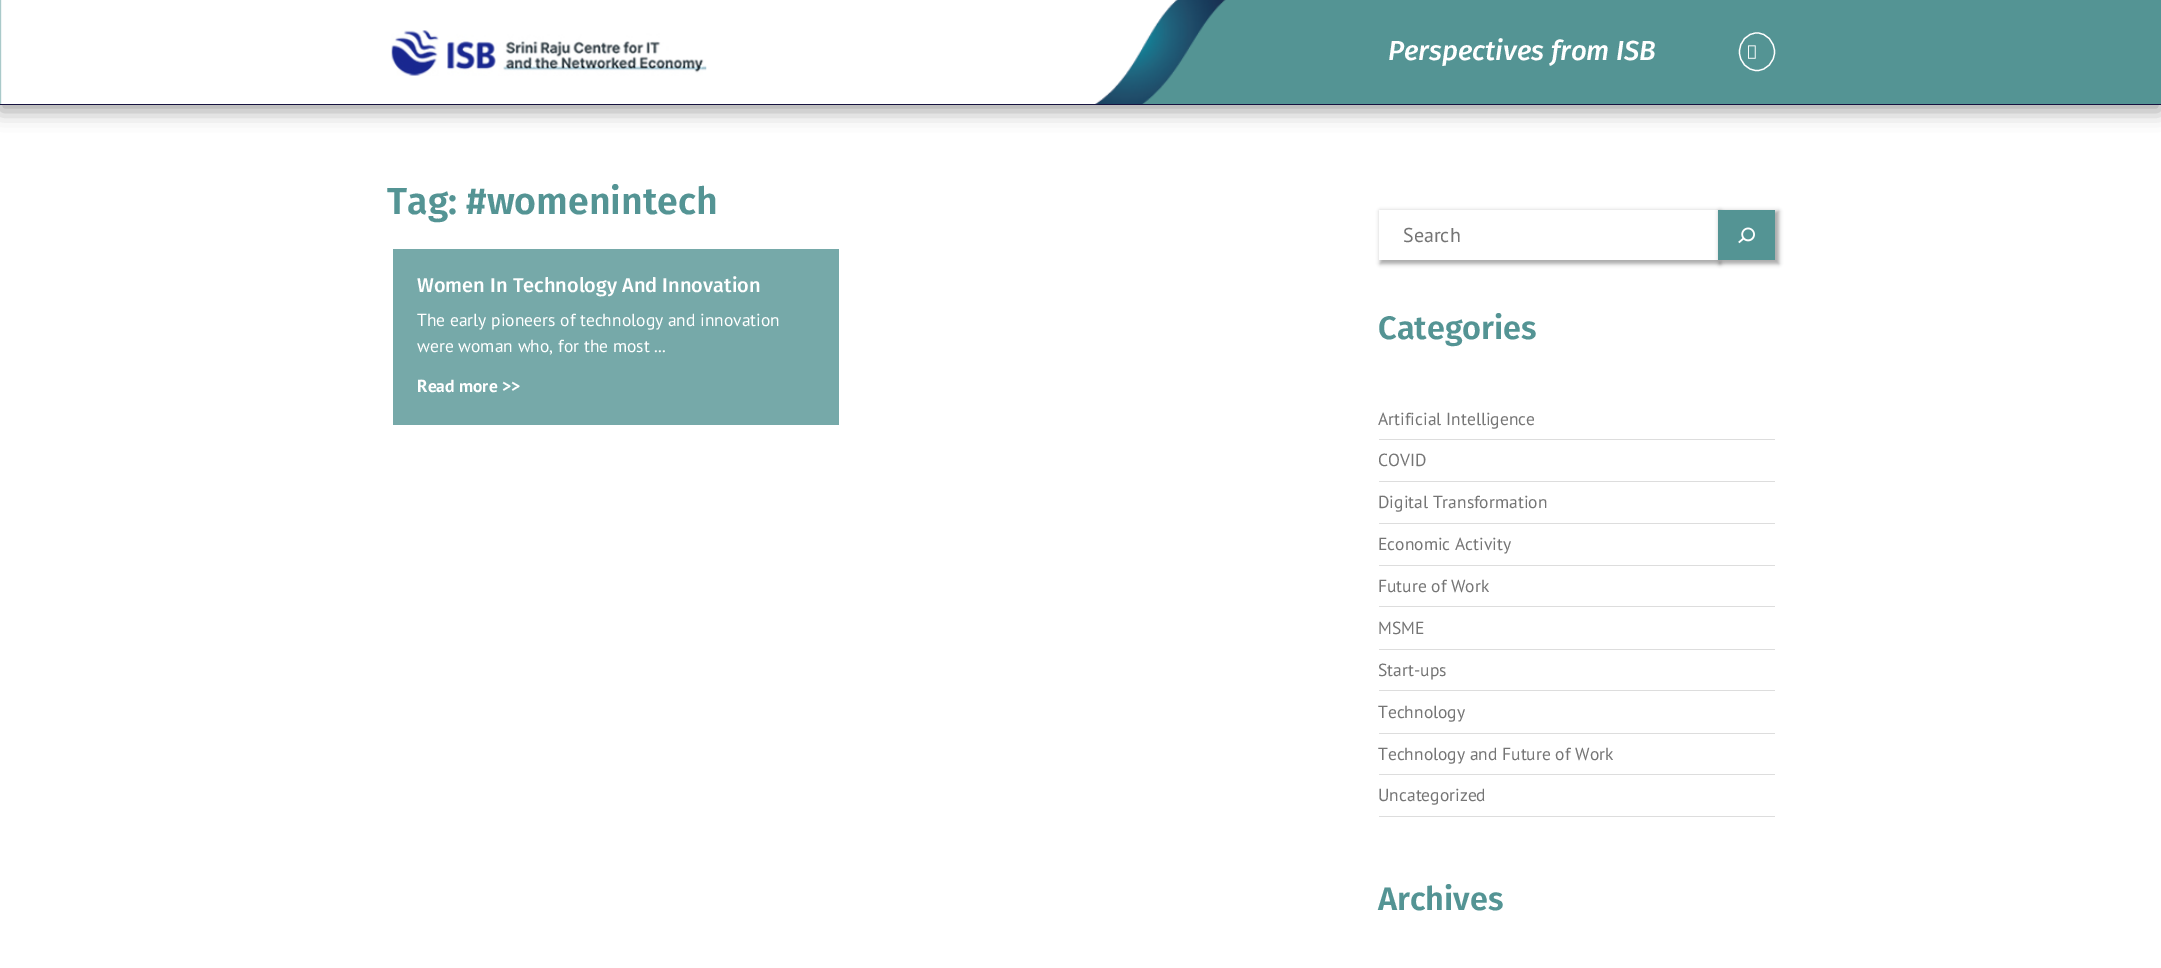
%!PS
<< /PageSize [2161 968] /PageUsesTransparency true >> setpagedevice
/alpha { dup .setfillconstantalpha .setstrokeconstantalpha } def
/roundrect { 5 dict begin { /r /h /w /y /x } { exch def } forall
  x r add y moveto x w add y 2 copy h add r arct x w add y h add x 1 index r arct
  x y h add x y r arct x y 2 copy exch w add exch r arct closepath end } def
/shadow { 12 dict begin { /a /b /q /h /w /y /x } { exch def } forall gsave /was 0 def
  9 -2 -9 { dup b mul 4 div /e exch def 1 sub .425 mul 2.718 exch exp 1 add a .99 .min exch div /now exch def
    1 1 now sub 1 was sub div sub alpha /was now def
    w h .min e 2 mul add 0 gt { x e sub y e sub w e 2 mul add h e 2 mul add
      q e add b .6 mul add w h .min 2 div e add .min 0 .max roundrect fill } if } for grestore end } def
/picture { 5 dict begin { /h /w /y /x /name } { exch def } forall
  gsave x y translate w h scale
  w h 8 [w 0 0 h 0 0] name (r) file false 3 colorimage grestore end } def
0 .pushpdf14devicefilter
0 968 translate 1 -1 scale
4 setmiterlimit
1 setgray
0 0 2161 968 rectfill
0 setgray
0 6 2161 105 0 9.5 0.35 shadow
0.329 0.58 0.58 setrgbcolor
0 0 2161 104 rectfill
(img1.rgb) 0 0 1226 104 picture
0.086 0.075 0.247 setrgbcolor
0 104 2161 1 rectfill
(img2.rgb) 391 30 316 46 picture
/FiraSans-MediumItalic [27.5 0 0 -27.5 0 0] selectfont
1 setgray
1388 60 moveto (Perspectives from ISB) show
1.2 setlinewidth
newpath 1757 33 moveto 1766.5 33 1774.5 41.5 1774.5 52 curveto 1774.5 62 1766.5 70.5 1757 70.5 curveto 1747 70.5 1739.5 62 1739.5 52 curveto 1739.5 41.5 1747 33 1757 33 curveto closepath stroke
(img3.rgb) 1748 45 8 14 picture
/FiraSans-SemiBold [37.5 0 0 -37.5 0 0] selectfont
0.329 0.58 0.58 setrgbcolor
387 214 moveto (Tag: #womenintech) show
0.463 0.663 0.663 setrgbcolor
393 249 446 176 rectfill
/FiraSans-Medium [20 0 0 -20 0 0] selectfont
1 setgray
417 292 moveto (Women In Technology And Innovation) show
/PTSans-Regular [17.5 0 0 -17.5 0 0] selectfont
417 326 moveto (The early pioneers of technology and innovation) show
417 352 moveto (were woman who, for the most ...) show
/PTSans-Bold [17.5 0 0 -17.5 0 0] selectfont
417 392 moveto (Read more >>) show
0.467 setgray
1380 211 341 53 0 2 0.61 shadow
1 setgray
1379 210 339 50 rectfill
/PTSans-Regular [20 0 0 -20 0 0] selectfont
0.459 setgray
1403 242 moveto (Search) show
0.467 setgray
1719 211 60 53 0 2 0.61 shadow
0.329 0.58 0.58 setrgbcolor
1718 210 57 50 rectfill
(img4.rgb) 1738 227 17 17 picture
/FiraSans-SemiBold [32.5 0 0 -32.5 0 0] selectfont
1378 339 moveto (Categories) show
0.867 setgray
1379 439 396 1 rectfill
/PTSans-Regular [17.5 0 0 -17.5 0 0] selectfont
0.459 setgray
1378 425 moveto (Artificial Intelligence) show
0.867 setgray
1379 481 396 1 rectfill
0.459 setgray
1378 466 moveto (COVID) show
0.867 setgray
1379 523 396 1 rectfill
0.459 setgray
1378 508 moveto (Digital Transformation) show
0.867 setgray
1379 565 396 1 rectfill
0.459 setgray
1378 550 moveto (Economic Activity) show
0.867 setgray
1379 606 396 1 rectfill
0.459 setgray
1378 592 moveto (Future of Work) show
0.867 setgray
1379 649 396 1 rectfill
0.459 setgray
1378 634 moveto (MSME) show
0.867 setgray
1379 690 396 1 rectfill
0.459 setgray
1378 676 moveto (Start-ups) show
0.867 setgray
1379 733 396 1 rectfill
0.459 setgray
1378 718 moveto (Technology) show
0.867 setgray
1379 774 396 1 rectfill
0.459 setgray
1378 760 moveto (Technology and Future of Work) show
0.867 setgray
1379 816 396 1 rectfill
0.459 setgray
1378 801 moveto (Uncategorized) show
/FiraSans-SemiBold [32.5 0 0 -32.5 0 0] selectfont
0.329 0.58 0.58 setrgbcolor
1378 910 moveto (Archives) show
.poppdf14devicefilter showpage
